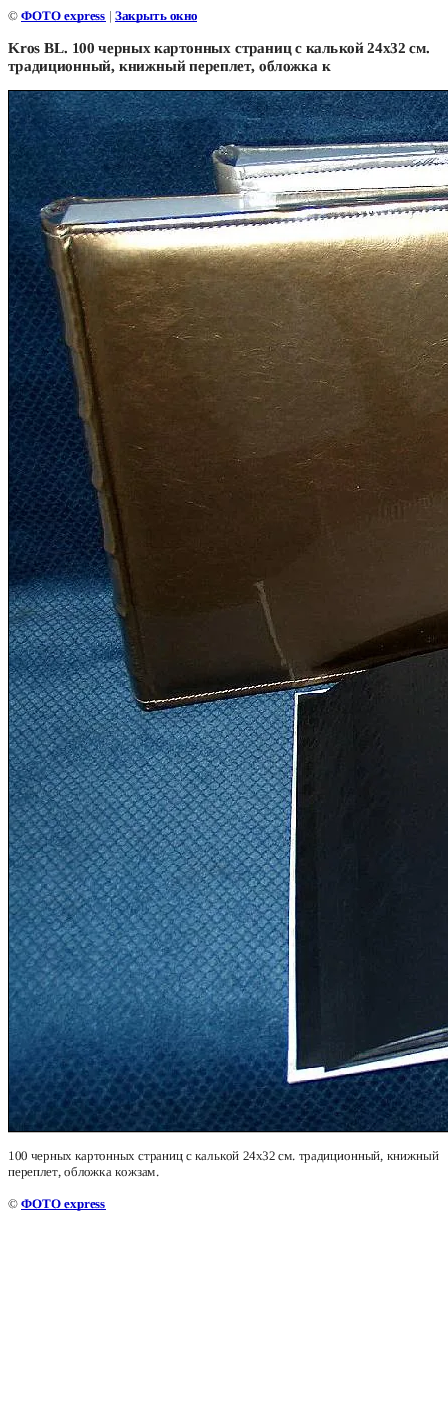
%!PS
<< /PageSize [448 1402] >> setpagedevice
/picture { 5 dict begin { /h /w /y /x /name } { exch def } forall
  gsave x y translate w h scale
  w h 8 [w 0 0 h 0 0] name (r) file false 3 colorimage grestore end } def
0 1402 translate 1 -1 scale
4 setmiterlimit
1 setgray
0 0 448 1402 rectfill
/LiberationSerif-Regular [13 0 0 -13 0 0] selectfont
0.157 setgray
8 20 moveto (©) show
0 0 0.8 setrgbcolor
21 21 85 1 rectfill
/LiberationSerif-Bold [13 0 0 -13 0 0] selectfont
21 20 moveto (ФОТО express) show
/LiberationSerif-Regular [13 0 0 -13 0 0] selectfont
0.157 setgray
109 20 moveto (|) show
0 0 0.8 setrgbcolor
115 21 82 1 rectfill
/LiberationSerif-Bold [13 0 0 -13 0 0] selectfont
115 20 moveto (Закрыть окно) show
/LiberationSerif-Bold [15.2 0 0 -15.2 0 0] selectfont
0.157 setgray
8 53 moveto (Kros BL. 100 черных картонных страниц с калькой 24х32 см.) show
8 71 moveto (традиционный, книжный переплет, обложка к) show
0 setgray
8.5 90.5 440 1041 rectstroke
(img1.rgb) 9 91 439 1040 picture
/LiberationSerif-Regular [13 0 0 -13 0 0] selectfont
0.157 setgray
8 1160 moveto (100 черных картонных страниц с калькой 24х32 см. традиционный, книжный) show
8 1176 moveto (переплет, обложка кожзам.) show
8 1208 moveto (©) show
0 0 0.8 setrgbcolor
21 1209 85 1 rectfill
/LiberationSerif-Bold [13 0 0 -13 0 0] selectfont
21 1208 moveto (ФОТО express) show
showpage
